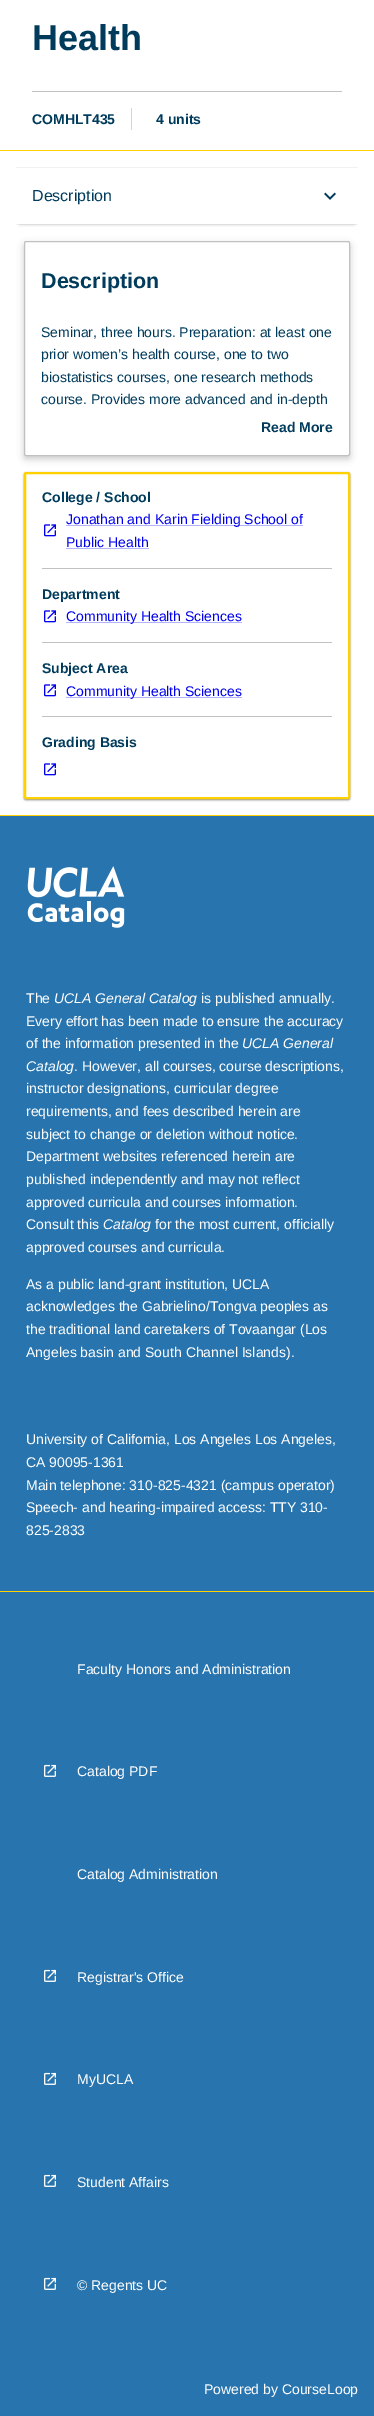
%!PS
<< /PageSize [374 2416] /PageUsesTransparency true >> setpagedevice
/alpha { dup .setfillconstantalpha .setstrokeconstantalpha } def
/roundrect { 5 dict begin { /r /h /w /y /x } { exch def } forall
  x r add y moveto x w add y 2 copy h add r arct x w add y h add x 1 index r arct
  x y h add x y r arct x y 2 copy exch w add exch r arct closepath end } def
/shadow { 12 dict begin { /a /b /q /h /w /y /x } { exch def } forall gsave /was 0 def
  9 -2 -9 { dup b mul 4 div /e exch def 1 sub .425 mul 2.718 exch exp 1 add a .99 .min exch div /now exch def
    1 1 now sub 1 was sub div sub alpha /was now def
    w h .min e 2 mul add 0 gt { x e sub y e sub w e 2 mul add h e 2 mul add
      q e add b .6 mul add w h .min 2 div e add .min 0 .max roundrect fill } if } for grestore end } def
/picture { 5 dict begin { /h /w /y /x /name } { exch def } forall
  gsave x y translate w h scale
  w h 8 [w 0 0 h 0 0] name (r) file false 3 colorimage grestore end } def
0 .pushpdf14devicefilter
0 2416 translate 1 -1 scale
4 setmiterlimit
1 setgray
0 0 374 2416 rectfill
0.757 setgray
32 91 310 1 rectfill
/LiberationSans-Bold [36 0 0 -36 0 0] selectfont
0 0.231 0.361 setrgbcolor
32 50 moveto (Health) show
0.8 0.847 0.871 setrgbcolor
131 108 1 22 rectfill
/LiberationSans-Bold [14 0 0 -14 0 0] selectfont
0 0.231 0.361 setrgbcolor
32 124 moveto (COMHLT435) show
156 124 moveto (4 units) show
1 0.82 0 setrgbcolor
0 150 374 1 rectfill
0.945 setgray
16 224 342 1 rectfill
gsave
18 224 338 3 rectclip
0 setgray
20 175 334 49 0 2.5 0.18 shadow
grestore
16 167 342 1 rectfill
/LiberationSans-Regular [16 0 0 -16 0 0] selectfont
0 0.231 0.361 setrgbcolor
32 201 moveto (Description) show
(img1.rgb) 324 192 12 8 picture
0 setgray
24 244 326 215 2 3.5 0.2 shadow
1 setgray
24.5 241.5 325 214 1.5 roundrect gsave fill grestore
0.757 setgray
stroke
/LiberationSans-Bold [21.5 0 0 -21.5 0 0] selectfont
0 0.231 0.361 setrgbcolor
41 288 moveto (Description) show
/LiberationSans-Regular [14 0 0 -14 0 0] selectfont
41 337 moveto (Seminar, three hours. Preparation: at least one) show
41 359 moveto (prior women’s health course, one to two) show
41 382 moveto (biostatistics courses, one research methods) show
41 404 moveto (course. Provides more advanced and in-depth) show
/LiberationSans-Bold [14 0 0 -14 0 0] selectfont
261 432 moveto (Read More) show
0 setgray
24 473 326 327 2 1 0.5 shadow
1 setgray
25 473 324 325 1 roundrect gsave fill grestore
1 0.82 0 setrgbcolor
2 setlinewidth
stroke
0.757 setgray
42 568 290 1 rectfill
0 0.231 0.361 setrgbcolor
42 502 moveto (College / School) show
0.702 0.702 0.98 setrgbcolor
66 525 237 1 rectfill
/LiberationSans-Regular [14 0 0 -14 0 0] selectfont
0 0 0.933 setrgbcolor
66 524 moveto (Jonathan and Karin Fielding School of) show
(img2.rgb) 44 524 12 13 picture
66 547 moveto (Public Health) show
0.702 0.702 0.98 setrgbcolor
66 548 83 1 rectfill
0.757 setgray
42 642 290 1 rectfill
/LiberationSans-Bold [14 0 0 -14 0 0] selectfont
0 0.231 0.361 setrgbcolor
42 599 moveto (Department) show
(img2.rgb) 44 610 12 13 picture
0.702 0.702 0.98 setrgbcolor
66 622 176 1 rectfill
/LiberationSans-Regular [14 0 0 -14 0 0] selectfont
0 0 0.933 setrgbcolor
66 621 moveto (Community Health Sciences) show
0.757 setgray
42 716 290 1 rectfill
/LiberationSans-Bold [14 0 0 -14 0 0] selectfont
0 0.231 0.361 setrgbcolor
42 673 moveto (Subject Area) show
(img2.rgb) 44 684 12 13 picture
0.702 0.702 0.98 setrgbcolor
66 697 176 1 rectfill
/LiberationSans-Regular [14 0 0 -14 0 0] selectfont
0 0 0.933 setrgbcolor
66 696 moveto (Community Health Sciences) show
/LiberationSans-Bold [14 0 0 -14 0 0] selectfont
0 0.231 0.361 setrgbcolor
42 747 moveto (Grading Basis) show
(img2.rgb) 44 763 12 13 picture
1 0.82 0 setrgbcolor
0 815 374 1 rectfill
0.153 0.455 0.682 setrgbcolor
0 816 374 1600 rectfill
(img3.rgb) 27 866 98 62 picture
/LiberationSans-Regular [14 0 0 -14 0 0] selectfont
1 setgray
26 1003 moveto (The) show
/LiberationSans-Italic [14 0 0 -14 0 0] selectfont
54 1003 moveto (UCLA General Catalog) show
/LiberationSans-Regular [14 0 0 -14 0 0] selectfont
201 1003 moveto (is published annually.) show
26 1026 moveto (Every effort has been made to ensure the accuracy) show
26 1048 moveto (of the information presented in the) show
/LiberationSans-Italic [14 0 0 -14 0 0] selectfont
242 1048 moveto (UCLA General) show
26 1071 moveto (Catalog) show
/LiberationSans-Regular [14 0 0 -14 0 0] selectfont
74 1071 moveto (. However, all courses, course descriptions,) show
26 1093 moveto (instructor designations, curricular degree) show
26 1116 moveto (requirements, and fees described herein are) show
26 1139 moveto (subject to change or deletion without notice.) show
26 1161 moveto (Department websites referenced herein are) show
26 1184 moveto (published independently and may not reflect) show
26 1207 moveto (approved curricula and courses information.) show
26 1229 moveto (Consult this) show
/LiberationSans-Italic [14 0 0 -14 0 0] selectfont
103 1229 moveto (Catalog) show
/LiberationSans-Regular [14 0 0 -14 0 0] selectfont
155 1229 moveto (for the most current, officially) show
26 1252 moveto (approved courses and curricula.) show
26 1289 moveto (As a public land-grant institution, UCLA) show
26 1311 moveto (acknowledges the Gabrielino/Tongva peoples as) show
26 1334 moveto (the traditional land caretakers of Tovaangar \(Los) show
26 1357 moveto (Angeles basin and South Channel Islands\).) show
26 1444 moveto (University of California, Los Angeles Los Angeles,) show
26 1467 moveto (CA 90095-1361) show
26 1490 moveto (Main telephone: 310-825-4321 \(campus operator\)) show
26 1512 moveto (Speech- and hearing-impaired access: TTY 310-) show
26 1535 moveto (825-2833) show
1 0.82 0 setrgbcolor
0 1591 374 1 rectfill
1 setgray
77 1674 moveto (Faculty Honors and Administration) show
(img4.rgb) 44 1764 12 13 picture
77 1776 moveto (Catalog PDF) show
77 1879 moveto (Catalog Administration) show
(img4.rgb) 44 1969 12 13 picture
77 1982 moveto (Registrar's Office) show
(img4.rgb) 44 2072 12 13 picture
77 2084 moveto (MyUCLA) show
(img4.rgb) 44 2174 12 13 picture
77 2187 moveto (Student Affairs) show
(img4.rgb) 44 2277 12 13 picture
77 2290 moveto (© Regents UC) show
204 2394 moveto (Powered by CourseLoop) show
.poppdf14devicefilter showpage
